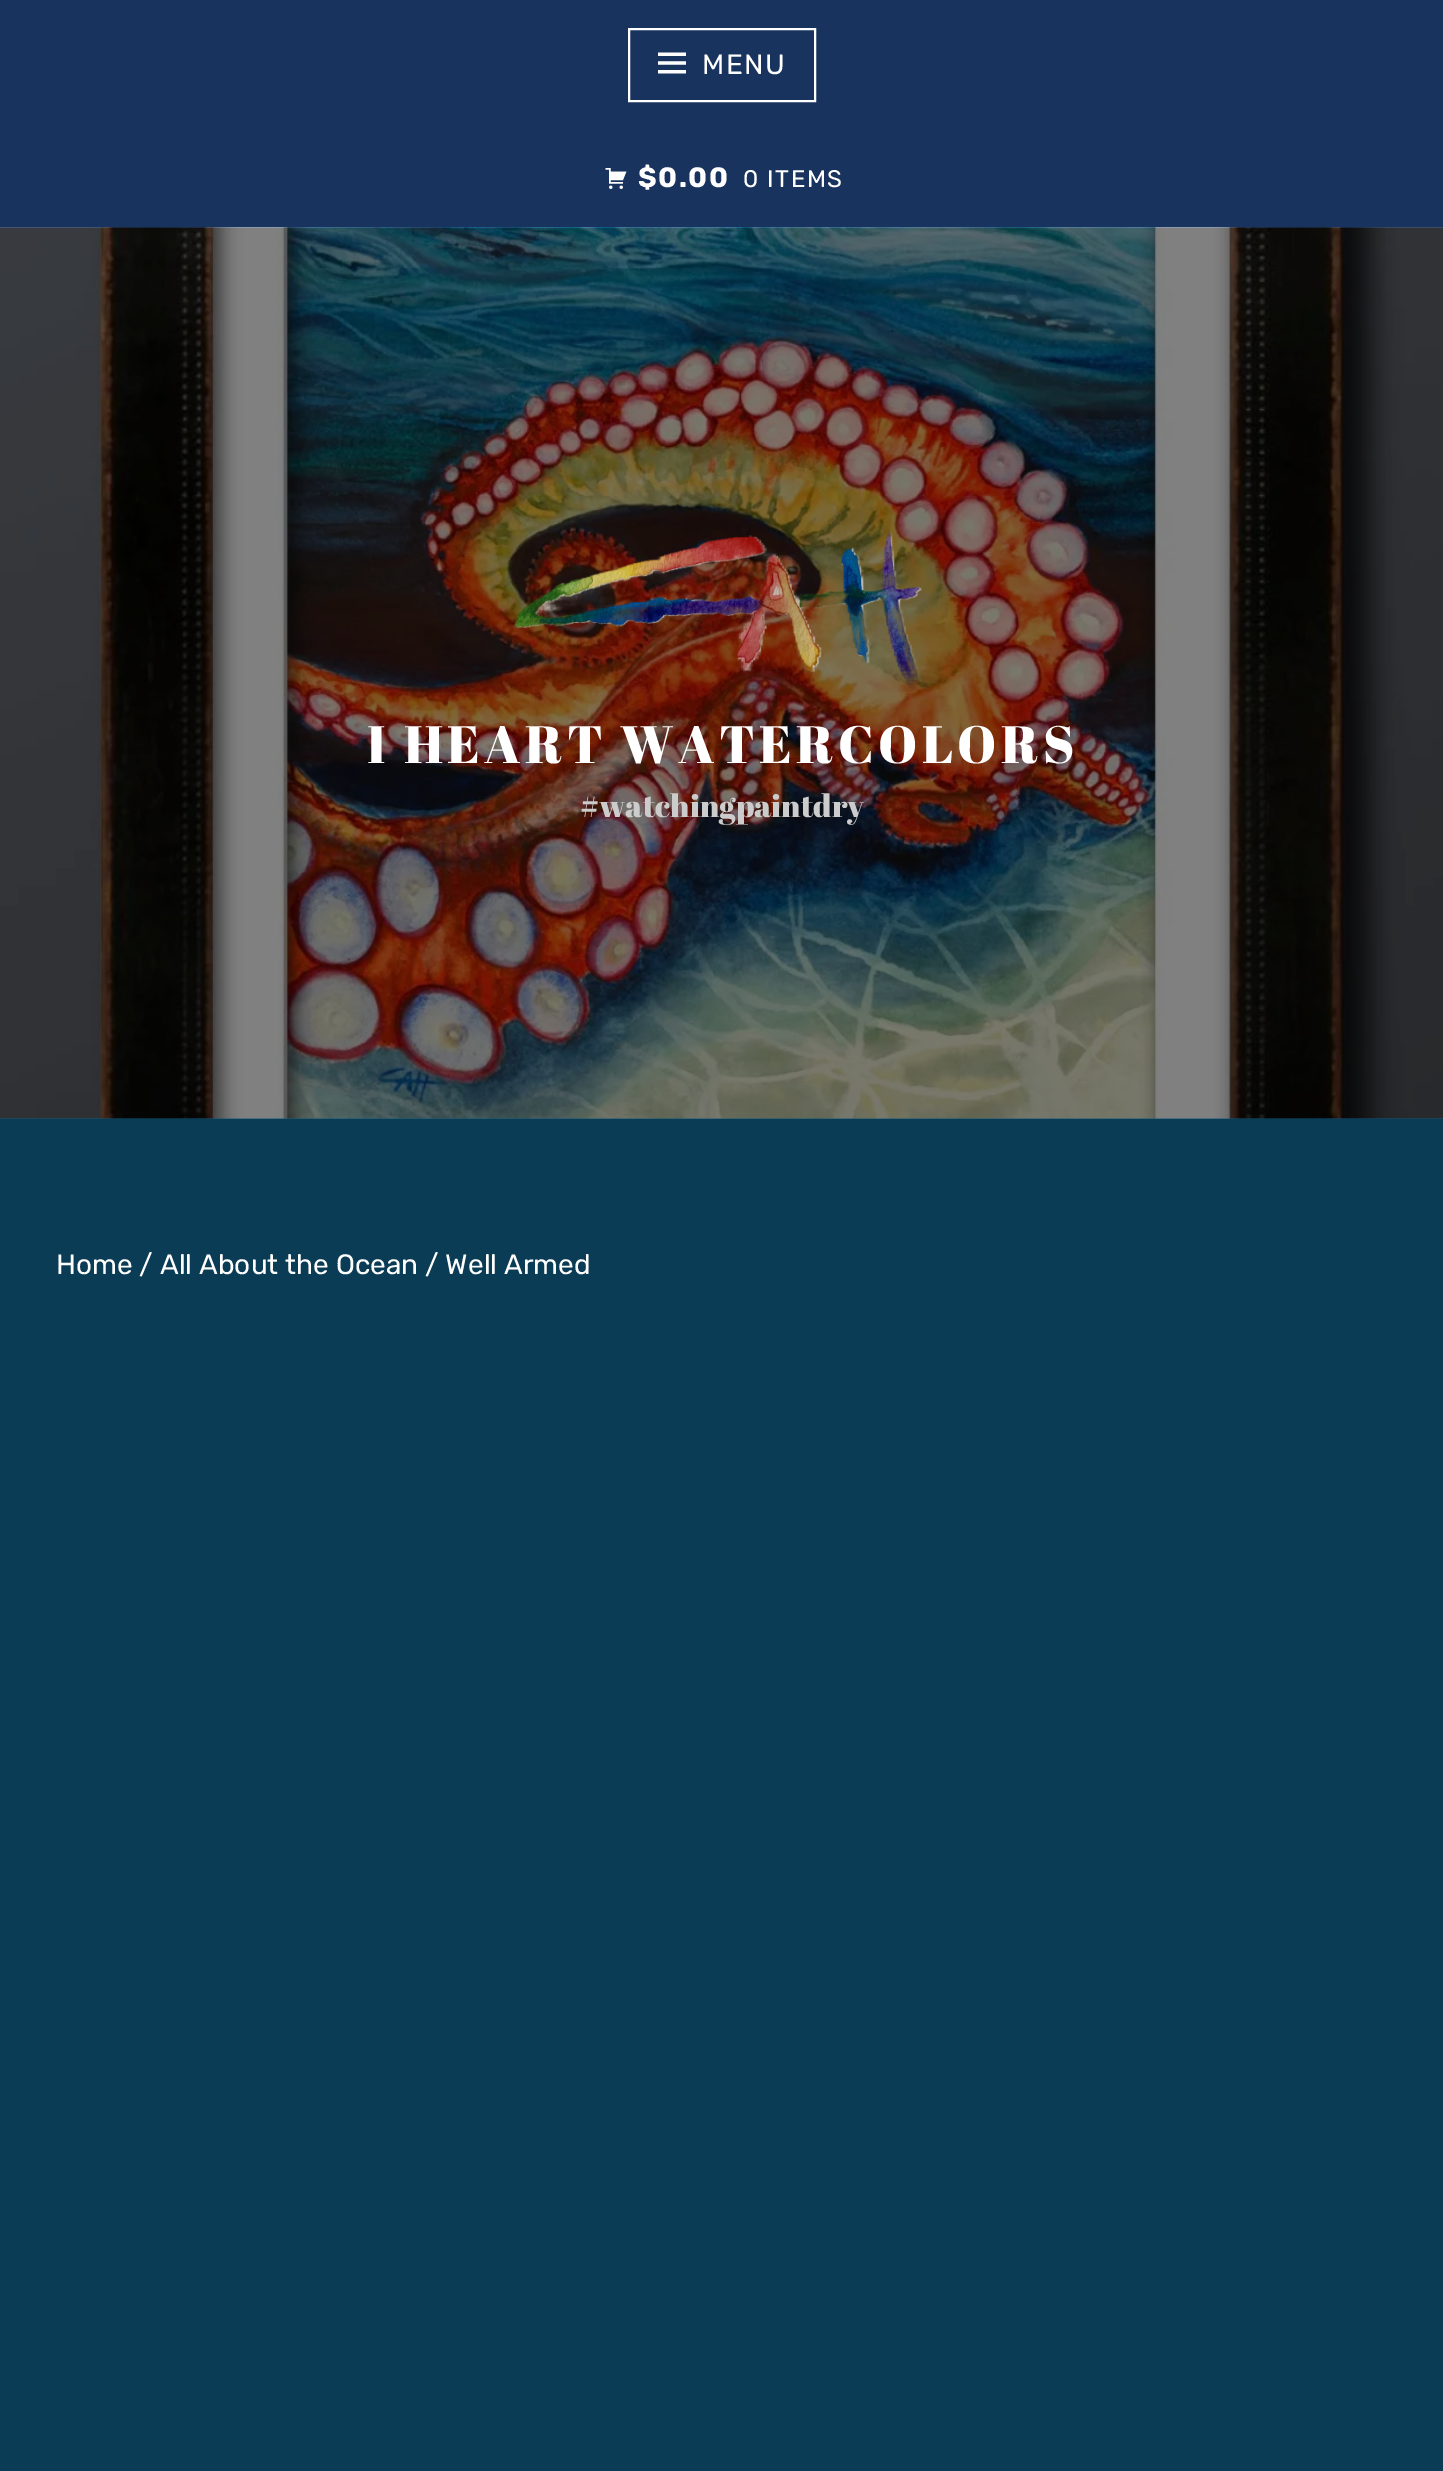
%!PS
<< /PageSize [1443 2471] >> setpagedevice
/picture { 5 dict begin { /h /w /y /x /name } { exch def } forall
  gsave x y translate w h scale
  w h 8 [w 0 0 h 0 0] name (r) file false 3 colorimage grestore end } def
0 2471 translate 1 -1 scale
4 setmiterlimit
0.043 0.235 0.333 setrgbcolor
0 0 1443 2471 rectfill
0.094 0.2 0.369 setrgbcolor
0 0 1443 228 rectfill
1 setgray
2 setlinewidth
629 29 186 72 rectstroke
(img1.rgb) 658 52 28 22 picture
/Rubik-Regular [28 0 0 -28 0 0] selectfont
702 74 moveto 1.5 0 (MENU) ashow
(img2.rgb) 605 168 22 21 picture
/Rubik-Bold [28 0 0 -28 0 0] selectfont
638 187 moveto 1.5 0 ($0.00) ashow
/Rubik-Regular [24 0 0 -24 0 0] selectfont
743 187 moveto 1.5 0 (0 ITEMS) ashow
(img3.rgb) 0 227 1443 892 picture
(img4.rgb) 514 528 409 163 picture
/AbrilFatface-Regular [52.5 0 0 -52.5 0 0] selectfont
367 763 moveto 4.25 0 (I HEART WATERCOLORS) ashow
/AbrilFatface-Regular [31.5 0 0 -31.5 0 0] selectfont
0.8 setgray
580 817 moveto (#watchingpaintdry) show
/Rubik-Regular [28 0 0 -28 0 0] selectfont
1 setgray
56 1274 moveto (Home / All About the Ocean / Well Armed) show
showpage
